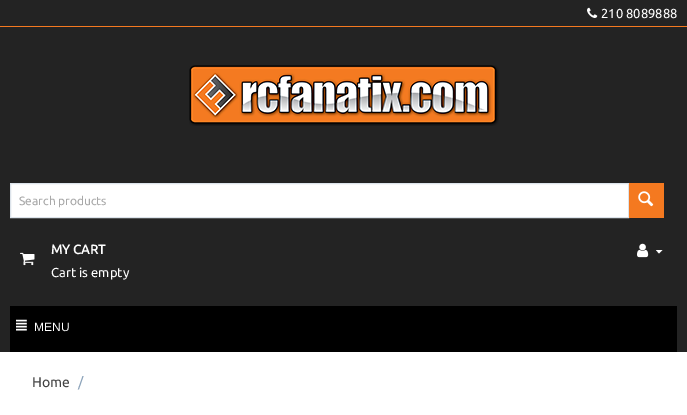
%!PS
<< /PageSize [687 415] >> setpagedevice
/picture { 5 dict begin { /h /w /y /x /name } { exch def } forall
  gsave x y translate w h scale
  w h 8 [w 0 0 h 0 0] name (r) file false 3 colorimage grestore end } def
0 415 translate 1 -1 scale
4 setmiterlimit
0.137 setgray
0 0 687 415 rectfill
0.957 0.475 0.125 setrgbcolor
0 26 687 1 rectfill
(img1.rgb) 587 7 11 11 picture
/Ubuntu-Regular [13 0 0 -13 0 0] selectfont
1 setgray
601 18 moveto (210 8089888) show
(img2.rgb) 189 65 310 61 picture
newpath 10.5 183.5 moveto 628.5 183.5 lineto 628.5 217.5 lineto 10.5 217.5 lineto closepath gsave fill grestore
0.863 0.89 0.918 setrgbcolor
stroke
/Ubuntu-Regular [12 0 0 -12 0 0] selectfont
0.663 setgray
19 205 moveto (Search products) show
0.957 0.475 0.125 setrgbcolor
629 183 35 35 rectfill
(img3.rgb) 638 191 16 16 picture
(img4.rgb) 20 252 15 14 picture
/Ubuntu-Bold [13 0 0 -13 0 0] selectfont
1 setgray
51 254 moveto (MY CART) show
/Ubuntu-Regular [13 0 0 -13 0 0] selectfont
51 277 moveto (Cart is empty) show
(img5.rgb) 637 243 12 15 picture
newpath 659 253.5 moveto 656 250 lineto 662.5 250 lineto closepath fill
0 setgray
10 306 667 46 rectfill
(img6.rgb) 16 319 11 12 picture
/LiberationSans-Regular [12 0 0 -12 0 0] selectfont
1 setgray
34 331 moveto (MENU) show
0 352 687 63 rectfill
/Ubuntu-Regular [14 0 0 -14 0 0] selectfont
0.263 setgray
32 387 moveto (Home) show
0.549 0.639 0.729 setrgbcolor
78 387 moveto (/) show
showpage
